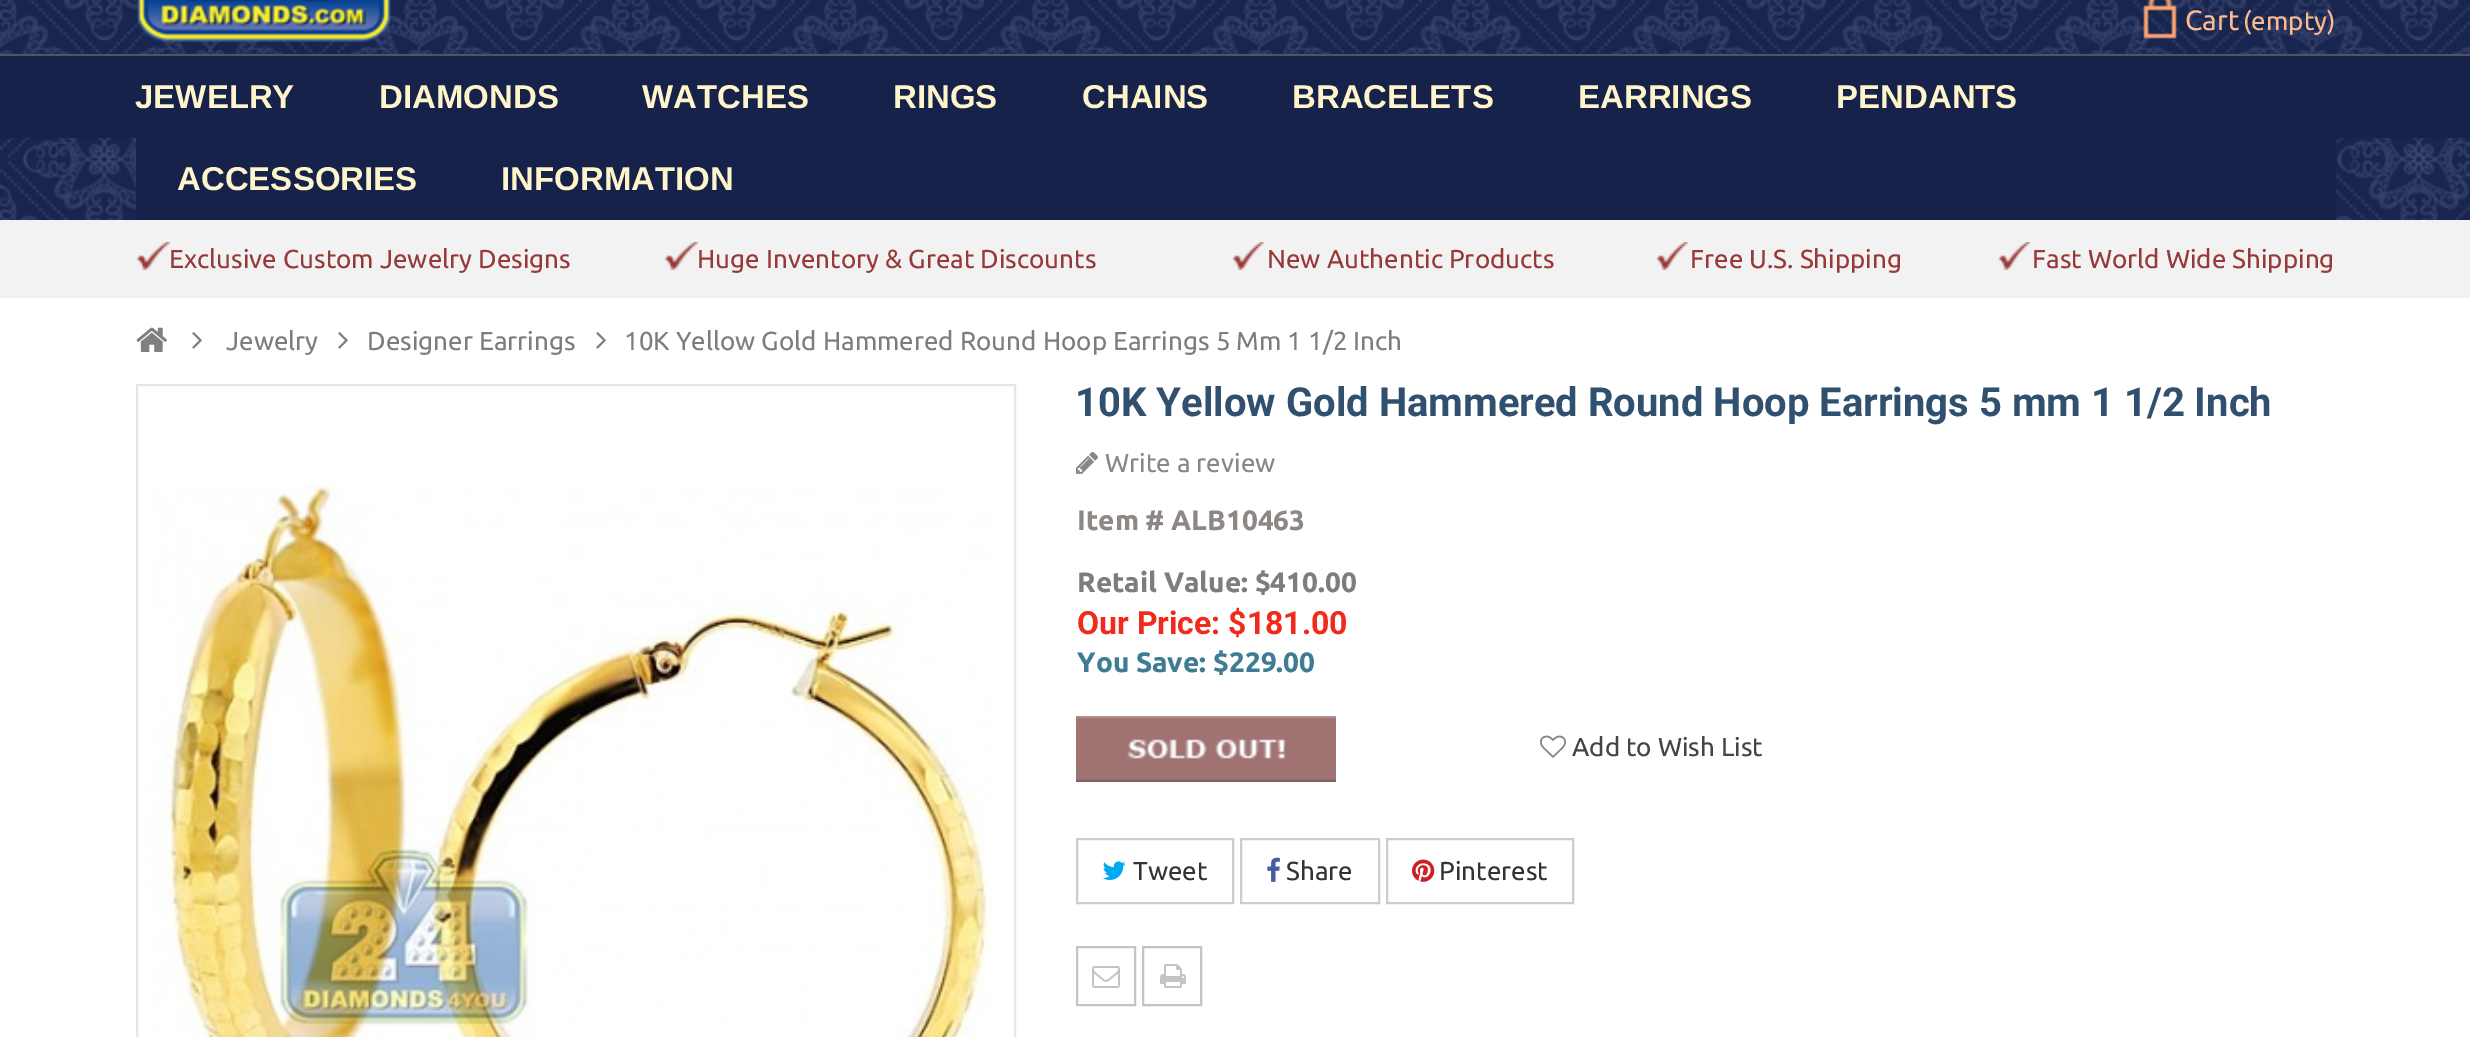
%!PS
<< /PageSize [2470 1037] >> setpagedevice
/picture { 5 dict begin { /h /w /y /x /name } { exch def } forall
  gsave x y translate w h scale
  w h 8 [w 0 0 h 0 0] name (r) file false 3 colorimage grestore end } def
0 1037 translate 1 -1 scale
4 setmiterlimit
1 setgray
0 0 2470 1037 rectfill
(img1.rgb) 0 0 2470 220 picture
(img2.rgb) 137 0 254 42 picture
(img3.rgb) 2143 0 34 39 picture
/Ubuntu-Regular [28 0 0 -28 0 0] selectfont
1 0.733 0.561 setrgbcolor
2185 30 moveto (Cart) show
/Ubuntu-Regular [26 0 0 -26 0 0] selectfont
2243 30 moveto (\(empty\)) show
0.086 0.133 0.286 setrgbcolor
136 138 2200 82 rectfill
0 56 2470 82 rectfill
/LiberationSans-Bold [33 0 0 -33 0 0] selectfont
1 0.961 0.796 setrgbcolor
135 108 moveto (JEWELRY) show
379 108 moveto (DIAMONDS) show
642 108 moveto (WATCHES) show
893 108 moveto (RINGS) show
1082 108 moveto (CHAINS) show
1292 108 moveto (BRACELETS) show
1578 108 moveto (EARRINGS) show
1836 108 moveto (PENDANTS) show
177 190 moveto (ACCESSORIES) show
501 190 moveto (INFORMATION) show
0.322 0.329 0.349 setrgbcolor
0 54 2470 2 rectfill
0.949 setgray
0 220 2470 78 rectfill
(img4.rgb) 136 242 34 28 picture
/Ubuntu-Regular [26 0 0 -26 0 0] selectfont
0.596 0.224 0.224 setrgbcolor
169 268 moveto (Exclusive Custom Jewelry Designs) show
(img5.rgb) 664 242 34 28 picture
697 268 moveto (Huge Inventory & Great Discounts) show
(img6.rgb) 1232 242 32 28 picture
1267 268 moveto (New Authentic Products) show
(img6.rgb) 1656 242 32 28 picture
1690 268 moveto (Free U.S. Shipping) show
(img6.rgb) 1998 242 32 28 picture
2032 268 moveto (Fast World Wide Shipping) show
(img7.rgb) 136 327 31 25 picture
(img8.rgb) 192 332 10 17 picture
0.49 setgray
226 350 moveto (Jewelry) show
(img8.rgb) 338 332 10 17 picture
367 350 moveto (Designer Earrings) show
(img8.rgb) 596 332 10 17 picture
624 350 moveto (10K Yellow Gold Hammered Round Hoop Earrings 5 Mm 1 1/2 Inch) show
0.902 setgray
2 setlinewidth
137 385 878 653 rectstroke
(img9.rgb) 148 485 845 552 picture
/Roboto-Bold [40 0 0 -40 0 0] selectfont
0.192 0.314 0.435 setrgbcolor
1075 416 moveto (10K Yellow Gold Hammered Round Hoop Earrings 5 mm 1 1/2 Inch) show
(img10.rgb) 1076 451 22 23 picture
/Ubuntu-Regular [26 0 0 -26 0 0] selectfont
0.522 0.529 0.537 setrgbcolor
1105 472 moveto (Write a review) show
/Ubuntu-Bold [28 0 0 -28 0 0] selectfont
0.553 0.533 0.522 setrgbcolor
1077 530 moveto (Item #) show
1171 530 moveto (ALB10463) show
0.49 setgray
1077 592 moveto (Retail Value: $410.00) show
/Roboto-Bold [32 0 0 -32 0 0] selectfont
0.941 0.169 0.11 setrgbcolor
1077 634 moveto (Our Price: $181.00) show
/Ubuntu-Bold [28 0 0 -28 0 0] selectfont
0.239 0.486 0.576 setrgbcolor
1077 672 moveto (You Save: $229.00) show
(img11.rgb) 1076 716 260 66 picture
(img12.rgb) 1540 735 26 23 picture
/Ubuntu-Regular [26 0 0 -26 0 0] selectfont
0.267 setgray
1572 756 moveto (Add to Wish List) show
0.8 setgray
1077 839 156 64 rectstroke
(img13.rgb) 1102 861 24 19 picture
0.2 setgray
1133 880 moveto (Tweet) show
0.8 setgray
1241 839 138 64 rectstroke
(img14.rgb) 1267 857 13 25 picture
0.2 setgray
1286 880 moveto (Share) show
0.8 setgray
1387 839 186 64 rectstroke
(img15.rgb) 1412 859 23 23 picture
0.2 setgray
1439 880 moveto (Pinterest) show
0.769 setgray
1077 947 58 58 rectstroke
(img16.rgb) 1092 966 28 22 picture
1143 947 58 58 rectstroke
(img17.rgb) 1160 964 26 24 picture
showpage
